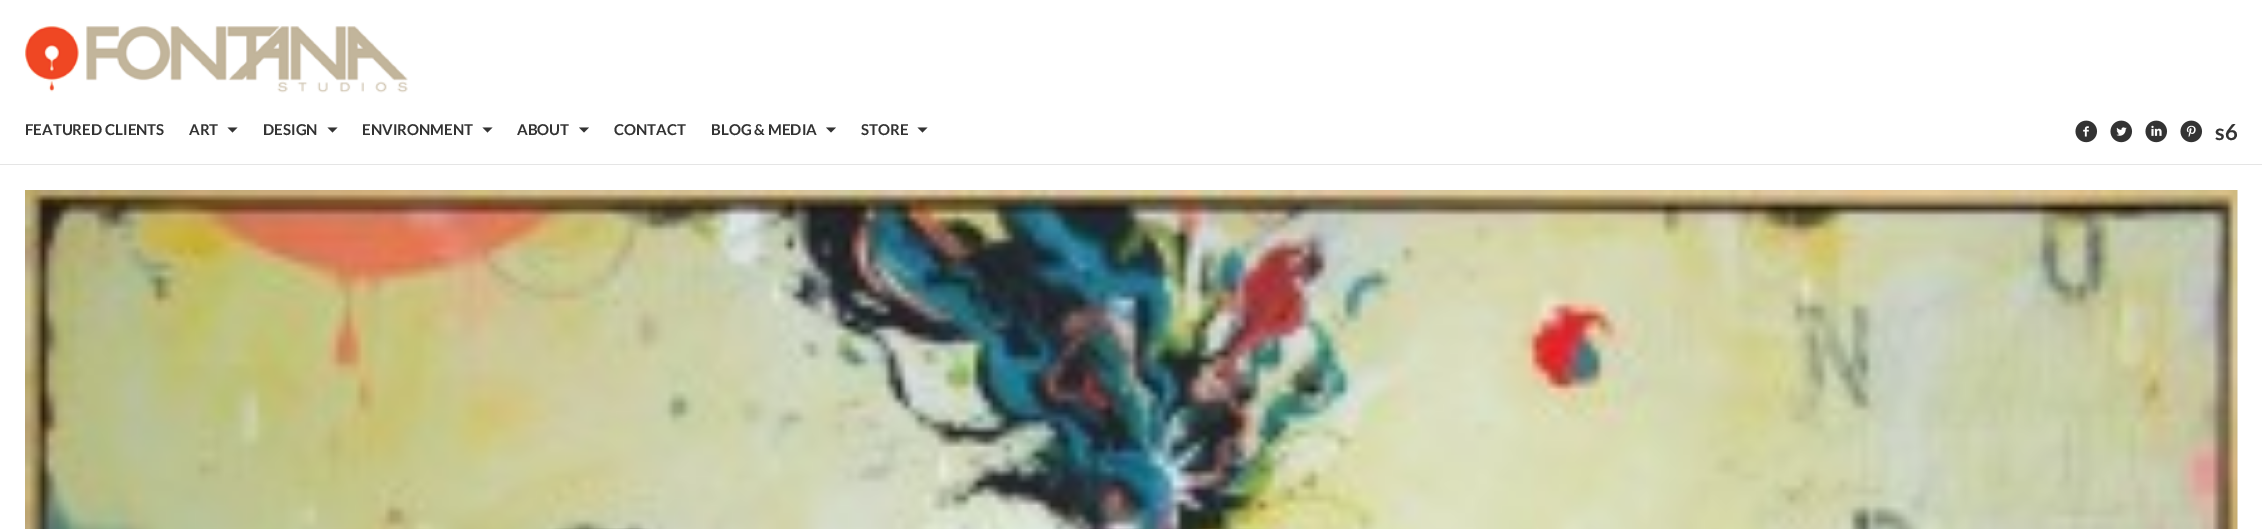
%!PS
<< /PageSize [2262 529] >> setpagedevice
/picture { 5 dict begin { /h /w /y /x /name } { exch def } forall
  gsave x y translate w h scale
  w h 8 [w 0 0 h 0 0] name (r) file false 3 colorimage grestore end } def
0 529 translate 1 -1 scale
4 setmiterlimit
1 setgray
0 0 2262 529 rectfill
(img1.rgb) 25 26 383 67 picture
0.898 setgray
0 164 2262 1 rectfill
/Lato-Bold [15 0 0 -15 0 0] selectfont
0.2 setgray
25 135 moveto (FEATURED CLIENTS) show
189 135 moveto (ART) show
newpath 227.5 127.5 moveto 237.5 127.5 lineto 232.5 132.5 lineto closepath fill
263 135 moveto (DESIGN) show
newpath 327.5 127.5 moveto 337.5 127.5 lineto 332.5 132.5 lineto closepath fill
362 135 moveto (ENVIRONMENT) show
newpath 482.5 127.5 moveto 492.5 127.5 lineto 487.5 132.5 lineto closepath fill
517 135 moveto (ABOUT) show
newpath 579 127.5 moveto 589 127.5 lineto 584 132.5 lineto closepath fill
614 135 moveto (CONTACT) show
711 135 moveto (BLOG & MEDIA) show
newpath 826 127.5 moveto 836 127.5 lineto 831 132.5 lineto closepath fill
861 135 moveto (STORE) show
newpath 917.5 127.5 moveto 927.5 127.5 lineto 922.5 132.5 lineto closepath fill
(img2.rgb) 2075 120 23 23 picture
(img3.rgb) 2110 120 23 23 picture
(img4.rgb) 2145 120 23 23 picture
(img5.rgb) 2180 120 23 23 picture
/Lato-Bold [22 0 0 -22 0 0] selectfont
2215 140 moveto (s6) show
(img6.rgb) 25 190 2213 339 picture
showpage
